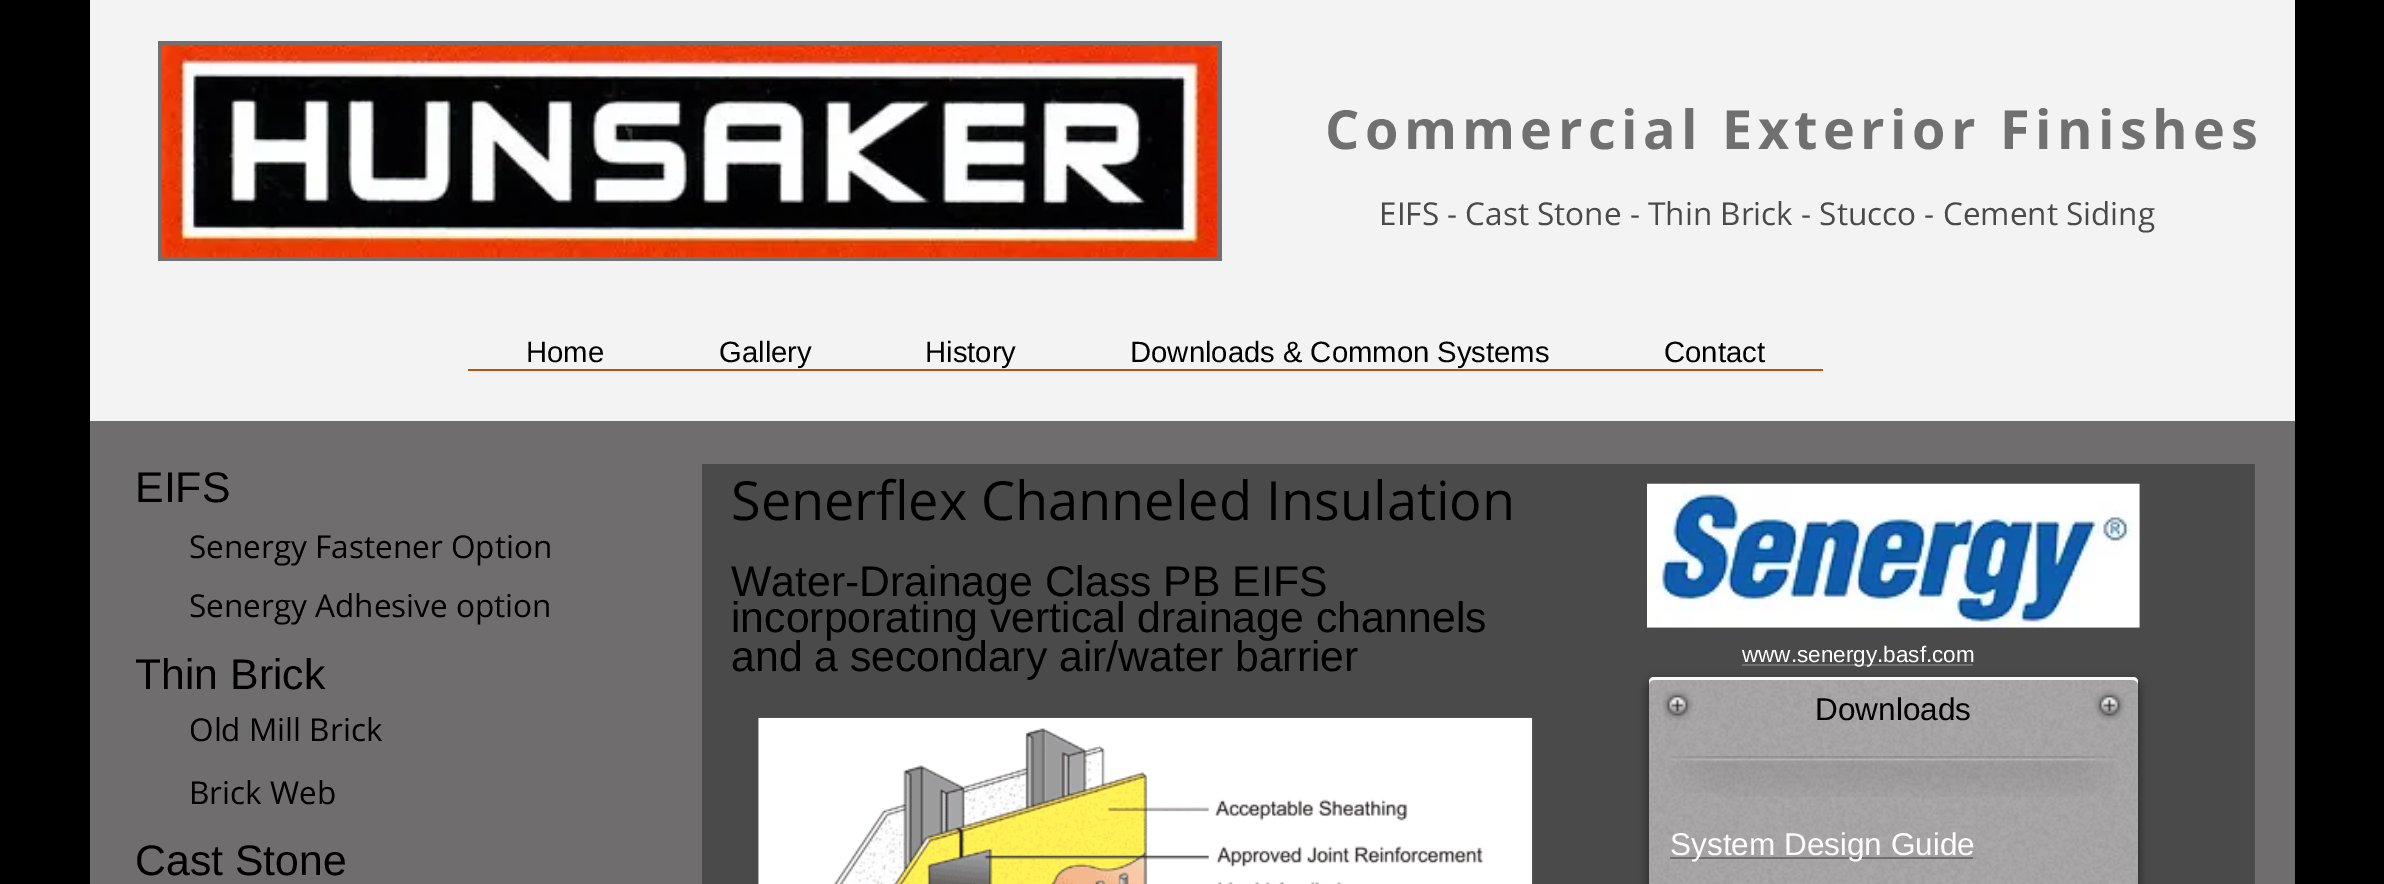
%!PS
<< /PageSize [2384 884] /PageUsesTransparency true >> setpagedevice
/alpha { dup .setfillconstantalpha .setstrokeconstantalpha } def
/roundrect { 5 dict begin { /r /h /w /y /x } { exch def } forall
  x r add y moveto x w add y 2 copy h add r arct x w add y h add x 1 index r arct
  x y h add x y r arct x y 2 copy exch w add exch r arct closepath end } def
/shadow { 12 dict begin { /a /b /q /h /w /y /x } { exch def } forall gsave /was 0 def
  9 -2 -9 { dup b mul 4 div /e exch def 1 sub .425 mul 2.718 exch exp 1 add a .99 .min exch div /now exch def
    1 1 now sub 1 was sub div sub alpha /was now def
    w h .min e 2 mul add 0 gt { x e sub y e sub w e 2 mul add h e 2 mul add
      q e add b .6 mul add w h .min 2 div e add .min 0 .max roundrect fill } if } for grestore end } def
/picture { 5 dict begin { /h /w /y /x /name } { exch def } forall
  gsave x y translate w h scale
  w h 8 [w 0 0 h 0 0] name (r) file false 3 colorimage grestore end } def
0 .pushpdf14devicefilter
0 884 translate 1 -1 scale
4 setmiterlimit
0 setgray
0 0 2384 884 rectfill
0.953 setgray
90 0 2205 421 rectfill
0.443 0.439 0.439 setrgbcolor
158 41 1064 220 rectfill
(img1.rgb) 162 45 1055 212 picture
/OpenSans-Bold [54 0 0 -54 0 0] selectfont
1325 149 moveto 5.4 0 (Commercial Exterior Finishes) ashow
/OpenSans-Regular [31.5 0 0 -31.5 0 0] selectfont
0.29 setgray
1379 225 moveto (EIFS - Cast Stone - Thin Brick - Stucco - Cement Siding) show
/LiberationSans-Regular [29.25 0 0 -29.25 0 0] selectfont
0 setgray
526 362 moveto (Home) show
719 362 moveto (Gallery) show
925 362 moveto (History) show
1130 362 moveto (Downloads & Common Systems) show
1664 362 moveto (Contact) show
0.741 0.325 0.031 setrgbcolor
468 369 1355 2 rectfill
0.435 0.427 0.427 setrgbcolor
90 421 2205 463 rectfill
/LiberationSans-Regular [42.75 0 0 -42.75 0 0] selectfont
0 setgray
135 502 moveto (EIFS) show
0.29 setgray
702 464 1553 420 rectfill
/OpenSans-Regular [54 0 0 -54 0 0] selectfont
0 setgray
731 520 moveto (Senerflex Channeled Insulation) show
/OpenSans-Regular [31.5 0 0 -31.5 0 0] selectfont
189 558 moveto (Senergy Fastener Option) show
/LiberationSans-Regular [42.75 0 0 -42.75 0 0] selectfont
731 596 moveto (Water-Drainage Class PB EIFS) show
/OpenSans-Regular [31.5 0 0 -31.5 0 0] selectfont
189 617 moveto (Senergy Adhesive option) show
/LiberationSans-Regular [42.75 0 0 -42.75 0 0] selectfont
731 632 moveto (incorporating vertical drainage channels) show
(img2.rgb) 1647 483 493 145 picture
731 671 moveto (and a secondary air/water barrier) show
1649 682 489 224 5 5.5 0.53 shadow
0.667 0.659 0.659 setrgbcolor
1649 677 489 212 5 roundrect fill
(img3.rgb) 1649 677 488 207 picture
0.92 alpha
1 setgray
newpath 1654 680 moveto 2133 680 lineto 2135 680 2138 682 2138 684 curveto 2138 682 lineto 2138 679 2136 677 2133 677 curveto 1654 677 lineto 1651 677 1649 679 1649 682 curveto 1649 684 lineto 1649 682 1651 680 1654 680 curveto closepath fill
1 alpha
(img4.rgb) 1662 690 31 31 picture
/LiberationSans-Regular [31.5 0 0 -31.5 0 0] selectfont
0 setgray
1815 720 moveto (Downloads) show
(img5.rgb) 2094 690 31 31 picture
(img6.rgb) 758 717 775 167 picture
/LiberationSans-Regular [42.75 0 0 -42.75 0 0] selectfont
135 689 moveto (Thin Brick) show
0.443 0.439 0.439 setrgbcolor
1742 664 231 2 rectfill
/LiberationSans-Regular [22.5 0 0 -22.5 0 0] selectfont
1 setgray
1742 662 moveto (www.senergy.basf.com) show
/OpenSans-Regular [31.5 0 0 -31.5 0 0] selectfont
0 setgray
189 741 moveto (Old Mill Brick) show
189 804 moveto (Brick Web) show
(img8.rgb) 1716 756 354 41 picture
(img7.rgb) 1668 756 49 37 picture
(img9.rgb) 2070 756 49 40 picture
/LiberationSans-Regular [42.75 0 0 -42.75 0 0] selectfont
135 875 moveto (Cast Stone) show
0.443 0.439 0.439 setrgbcolor
1670 857 303 2 rectfill
/LiberationSans-Regular [31.5 0 0 -31.5 0 0] selectfont
1 setgray
1670 855 moveto (System Design Guide) show
.poppdf14devicefilter showpage
